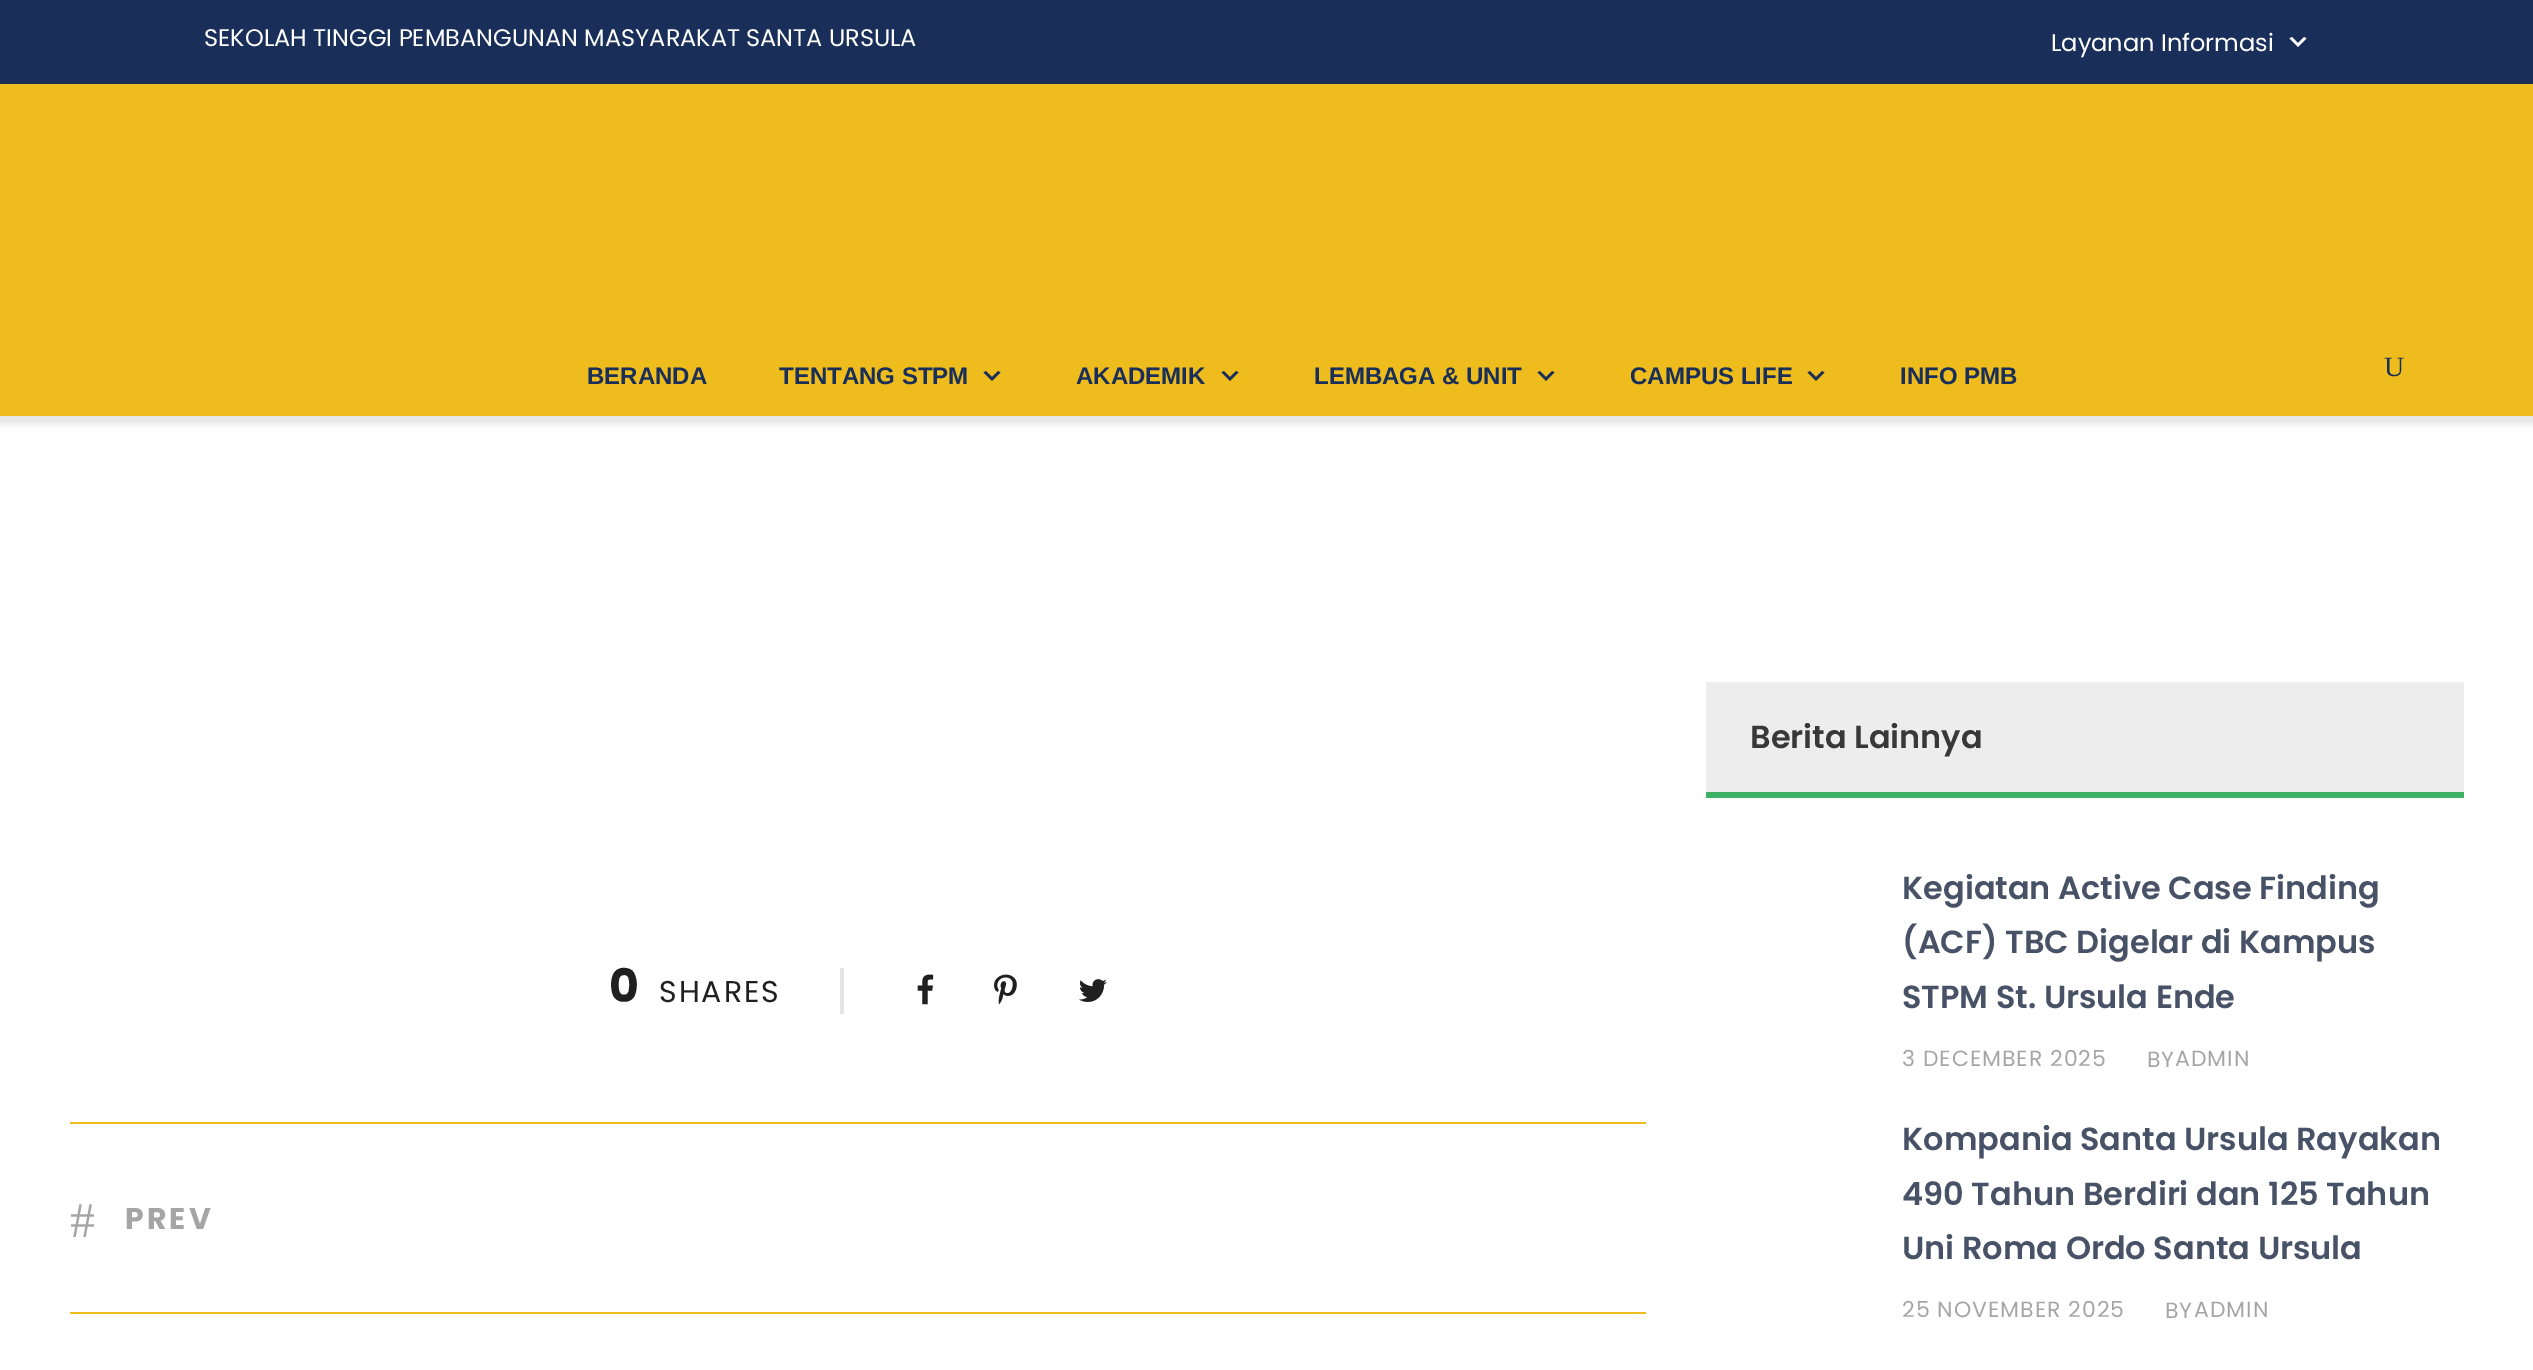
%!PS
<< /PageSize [2533 1370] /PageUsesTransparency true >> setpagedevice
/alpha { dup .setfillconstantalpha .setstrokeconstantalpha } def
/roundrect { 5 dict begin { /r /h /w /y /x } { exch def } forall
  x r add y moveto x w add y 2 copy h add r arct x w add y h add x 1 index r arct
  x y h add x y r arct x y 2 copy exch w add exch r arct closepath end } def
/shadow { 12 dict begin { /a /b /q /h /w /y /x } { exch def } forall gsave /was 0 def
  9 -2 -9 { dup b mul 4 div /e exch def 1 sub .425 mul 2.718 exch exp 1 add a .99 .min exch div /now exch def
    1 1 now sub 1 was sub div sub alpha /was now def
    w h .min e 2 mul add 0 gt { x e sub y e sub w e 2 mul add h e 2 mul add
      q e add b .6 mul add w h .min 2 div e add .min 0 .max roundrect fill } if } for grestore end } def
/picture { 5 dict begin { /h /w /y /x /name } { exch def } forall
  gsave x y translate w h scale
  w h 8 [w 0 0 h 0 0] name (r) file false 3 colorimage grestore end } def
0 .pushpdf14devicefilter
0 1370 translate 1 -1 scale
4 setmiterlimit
1 setgray
0 0 2533 1370 rectfill
0.098 0.184 0.349 setrgbcolor
0 0 2533 84 rectfill
/Poppins-Regular [24 0 0 -24 0 0] selectfont
1 setgray
204 46 moveto (SEKOLAH TINGGI PEMBANGUNAN MASYARAKAT SANTA URSULA) show
2051 51 moveto (Layanan Informasi) show
newpath 2292 37 moveto 2298 43 lineto 2304 37 lineto 2306.5 38.5 lineto 2298 47 lineto 2289.5 38.5 lineto closepath fill
0 setgray
0 86 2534 338 0 4 0.1 shadow
0.91 setgray
0 416 2533 6 rectfill
0.933 0.737 0.114 setrgbcolor
0 84 2533 332 rectfill
/LiberationSans-Bold [24 0 0 -24 0 0] selectfont
0.098 0.184 0.349 setrgbcolor
587 384 moveto (BERANDA) show
779 384 moveto (TENTANG STPM) show
newpath 986 371 moveto 992 377 lineto 998 371 lineto 1000.5 372.5 lineto 992 381 lineto 983.5 372.5 lineto closepath fill
1076 384 moveto (AKADEMIK) show
newpath 1224 371 moveto 1230 377 lineto 1236 371 lineto 1238.5 372.5 lineto 1230 381 lineto 1221.5 372.5 lineto closepath fill
1314 384 moveto (LEMBAGA & UNIT) show
newpath 1540 371 moveto 1546 377 lineto 1552 371 lineto 1554.5 372.5 lineto 1546 381 lineto 1537.5 372.5 lineto closepath fill
1630 384 moveto (CAMPUS LIFE) show
newpath 1810 371 moveto 1816 377 lineto 1822 371 lineto 1824.5 372.5 lineto 1816 381 lineto 1807.5 372.5 lineto closepath fill
1900 384 moveto (INFO PMB) show
/LiberationSerif-Regular [28 0 0 -28 0 0] selectfont
2384 376 moveto (U) show
/Poppins-Bold [46 0 0 -46 0 0] selectfont
0.125 setgray
609 1002 moveto (0) show
/Poppins-Regular [30 0 0 -30 0 0] selectfont
659 1002 moveto 2 0 (SHARES) ashow
0.898 setgray
840 968 4 46 rectfill
(img1.rgb) 917 974 17 31 picture
(img2.rgb) 994 974 23 31 picture
(img3.rgb) 1079 979 28 23 picture
0.933 0.737 0.114 setrgbcolor
70 1122 1576 2 rectfill
70 1312 1576 2 rectfill
/LiberationSerif-Regular [50 0 0 -50 0 0] selectfont
0.647 setgray
70 1237 moveto (#) show
/Poppins-Bold [30 0 0 -30 0 0] selectfont
125 1229 moveto 3 0 (PREV) ashow
0.929 setgray
1706 682 758 110 rectfill
0.239 0.694 0.4 setrgbcolor
1706 792 758 6 rectfill
/Poppins-SemiBold [32 0 0 -32 0 0] selectfont
0.22 setgray
1750 748 moveto (Berita Lainnya) show
0.278 0.322 0.404 setrgbcolor
1902 899 moveto (Kegiatan Active Case Finding) show
1902 953 moveto (\(ACF\) TBC Digelar di Kampus) show
1902 1008 moveto (STPM St. Ursula Ende) show
/Poppins-Regular [22 0 0 -22 0 0] selectfont
0.647 setgray
1902 1066 moveto 1 0 (3 DECEMBER 2025) ashow
2147 1067 moveto 1 0 (BY) ashow
2175 1066 moveto 1 0 (ADMIN) ashow
/Poppins-SemiBold [32 0 0 -32 0 0] selectfont
0.278 0.322 0.404 setrgbcolor
1902 1150 moveto (Kompania Santa Ursula Rayakan) show
1902 1205 moveto (490 Tahun Berdiri dan 125 Tahun) show
1902 1259 moveto (Uni Roma Ordo Santa Ursula) show
/Poppins-Regular [22 0 0 -22 0 0] selectfont
0.647 setgray
1902 1317 moveto 1 0 (25 NOVEMBER 2025) ashow
2165 1318 moveto 1 0 (BY) ashow
2194 1317 moveto 1 0 (ADMIN) ashow
.poppdf14devicefilter showpage
